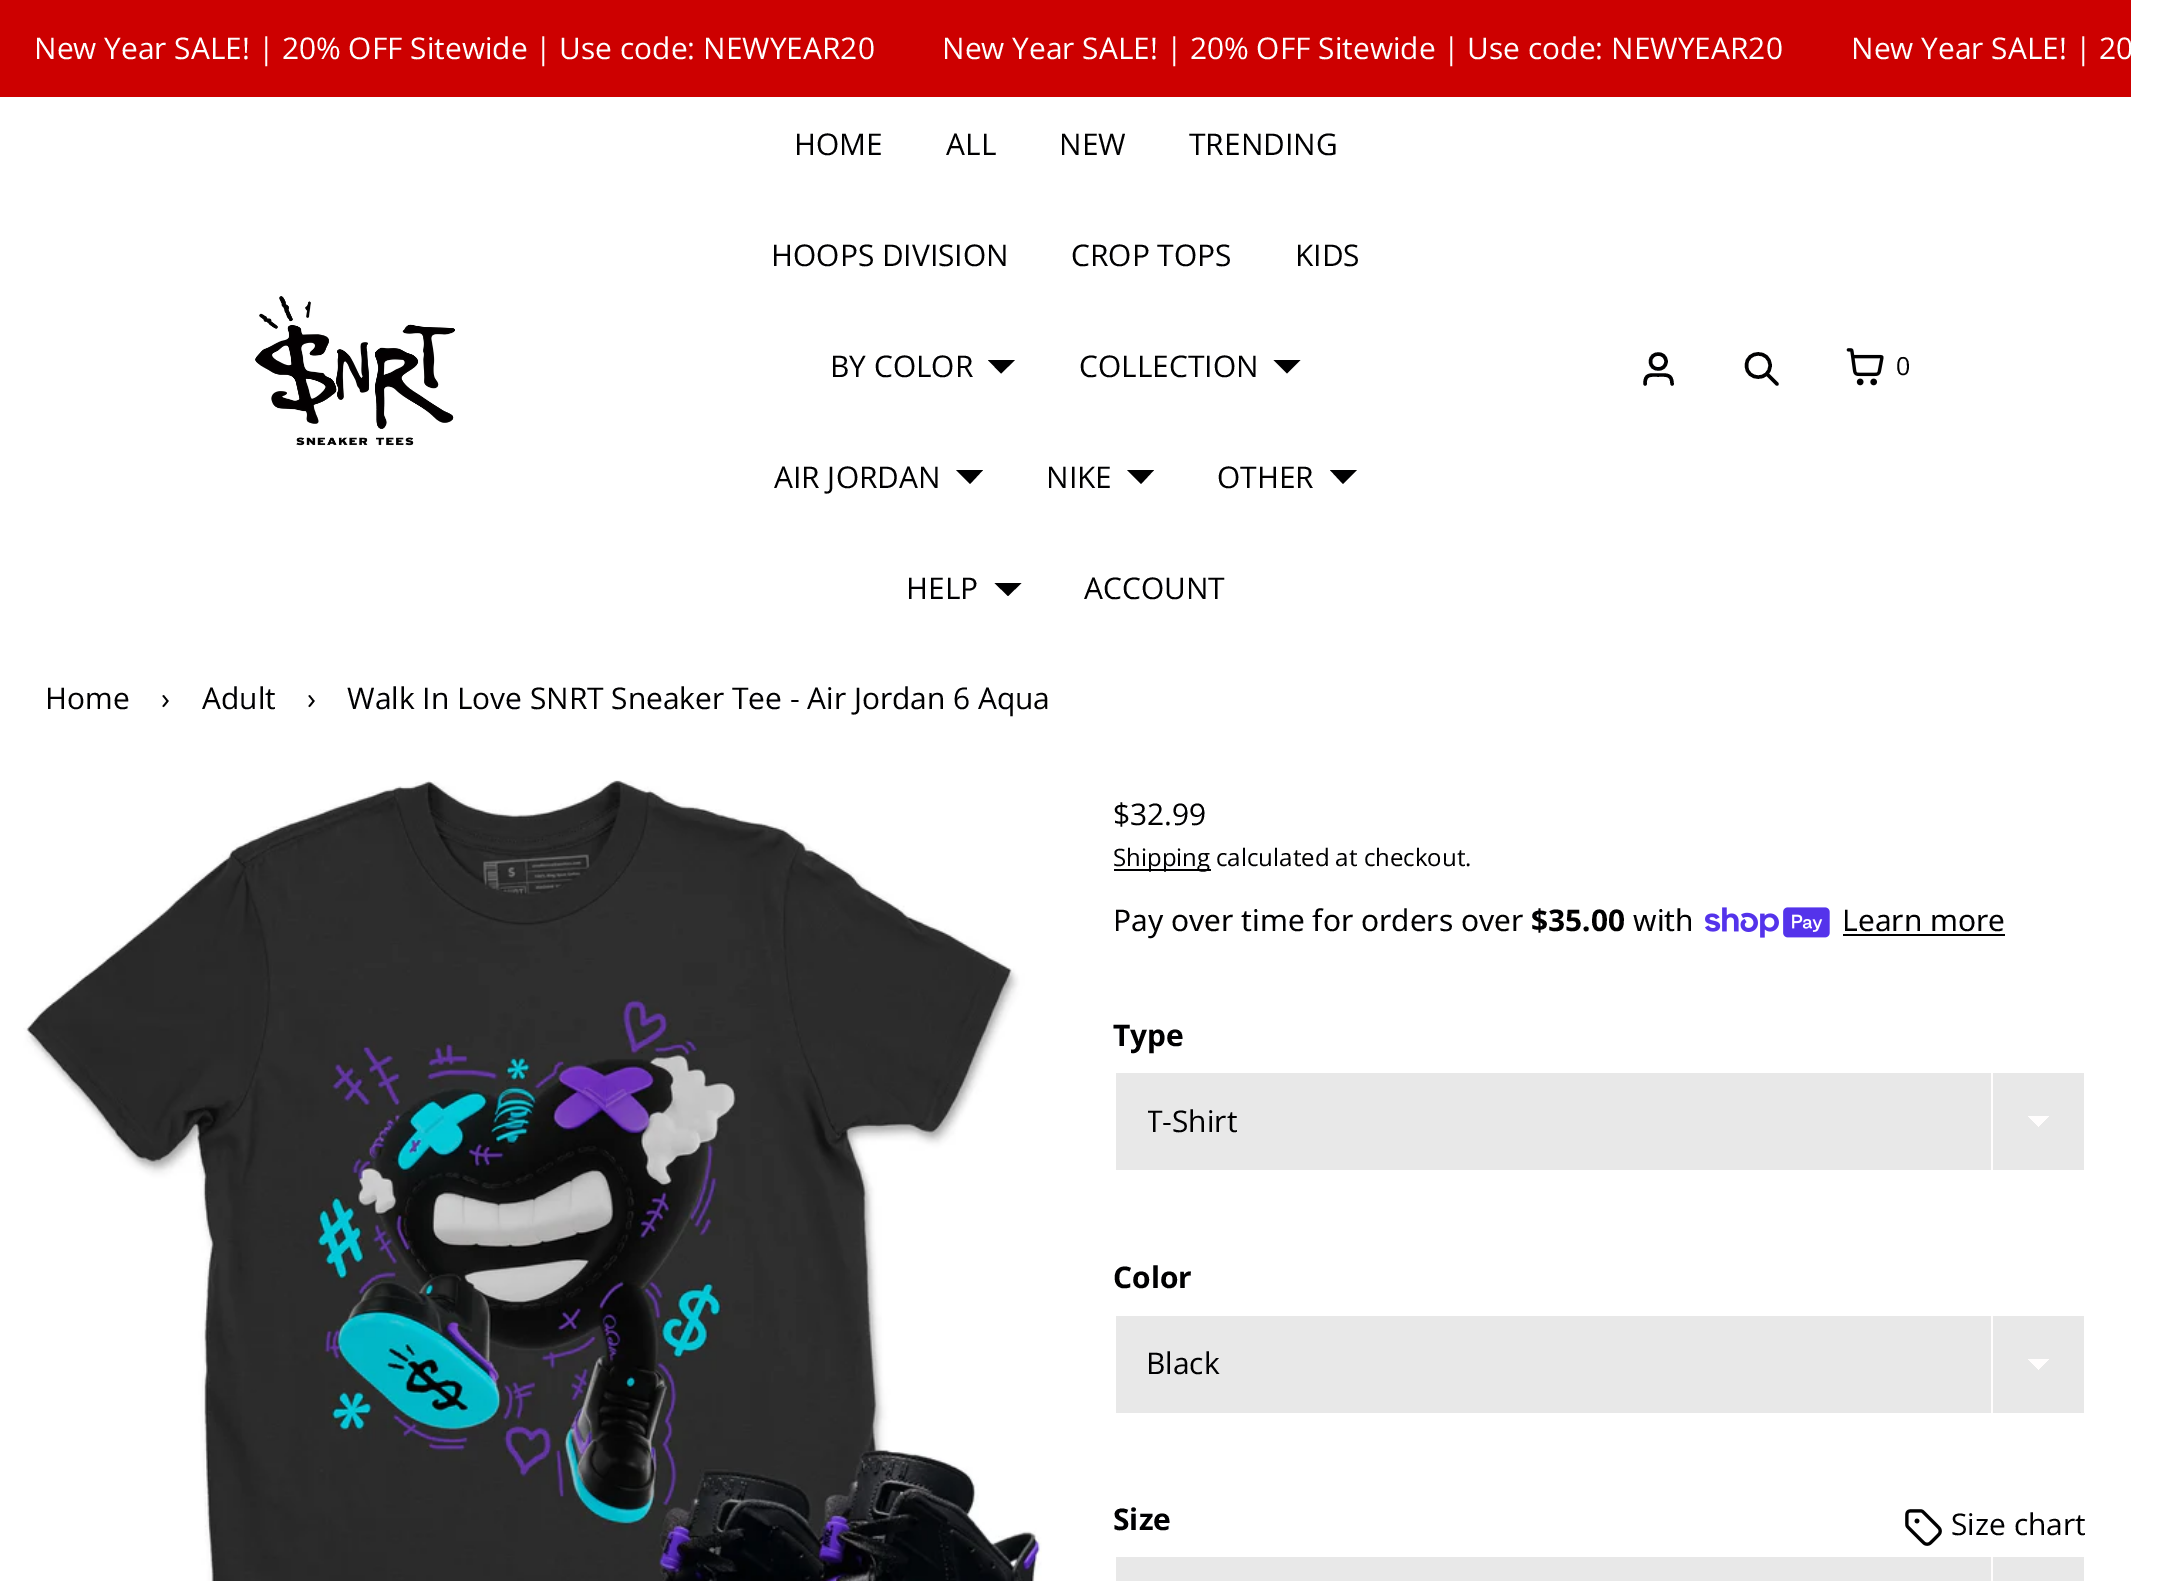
%!PS
<< /PageSize [2163 1581] >> setpagedevice
/picture { 5 dict begin { /h /w /y /x /name } { exch def } forall
  gsave x y translate w h scale
  w h 8 [w 0 0 h 0 0] name (r) file false 3 colorimage grestore end } def
0 1581 translate 1 -1 scale
4 setmiterlimit
1 setgray
0 0 2163 1581 rectfill
0.804 0 0 setrgbcolor
0 0 2131 97 rectfill
/OpenSans-Regular [29.9 0 0 -29.9 0 0] selectfont
1 setgray
34 59 moveto (New Year SALE! | 20% OFF Sitewide | Use code: NEWYEAR20) show
942 59 moveto (New Year SALE! | 20% OFF Sitewide | Use code: NEWYEAR20) show
gsave
0 0 2131 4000 rectclip
1851 59 moveto (New Year SALE! | 20) show
grestore
(img1.rgb) 255 296 200 150 picture
0 0 0.004 setrgbcolor
794 155 moveto (HOME) show
946 155 moveto (ALL) show
1059 155 moveto (NEW) show
1189 155 moveto (TRENDING) show
771 266 moveto (HOOPS DIVISION) show
1071 266 moveto (CROP TOPS) show
1295 266 moveto (KIDS) show
830 377 moveto (BY COLOR) show
newpath 988 360 moveto 1015 360 lineto 1001 373.5 lineto closepath fill
1079 377 moveto (COLLECTION) show
newpath 1273.5 360 moveto 1300.5 360 lineto 1287 373.5 lineto closepath fill
774 488 moveto (AIR JORDAN) show
newpath 956 470 moveto 983 470 lineto 970 484 lineto closepath fill
1046 488 moveto (NIKE) show
newpath 1127 470 moveto 1154 470 lineto 1141 484 lineto closepath fill
1217 488 moveto (OTHER) show
newpath 1330 470 moveto 1357 470 lineto 1343 484 lineto closepath fill
906 599 moveto (HELP) show
newpath 994.5 583 moveto 1021.5 583 lineto 1008 596 lineto closepath fill
1084 599 moveto (ACCOUNT) show
3.4 setlinewidth
1 setlinecap
1 setlinejoin
newpath 1672 384 moveto 1672 374 1666.5 375 1658 375 curveto 1650 375 1645 374 1645 384 curveto 1666 361.5 moveto 1666 371.5 1650.5 371.5 1650.5 361.5 curveto 1650.5 351.5 1666 351.5 1666 361.5 curveto closepath stroke
newpath 1777 384 moveto 1767 374 lineto 1770 365.5 moveto 1770 381 1746.5 381 1746.5 365.5 curveto 1746.5 350 1770 350 1770 365.5 curveto closepath stroke
(img2.rgb) 1846 348 38 38 picture
/OpenSans-Regular [25 0 0 -25 0 0] selectfont
1896 375 moveto 2 0 (0) ashow
/OpenSans-Regular [29.9 0 0 -29.9 0 0] selectfont
45 709 moveto (Home) show
161 709 moveto (›) show
202 709 moveto (Adult) show
307 709 moveto (›) show
347 709 moveto (Walk In Love SNRT Sneaker Tee - Air Jordan 6 Aqua) show
(img3.rgb) 23 780 1019 801 picture
1113 825 moveto ($32.99) show
1114 869 97 2 rectfill
/OpenSans-Regular [24 0 0 -24 0 0] selectfont
1113 866 moveto (Shipping) show
1216 866 moveto (calculated at checkout.) show
/NotoSans-Regular [29.9 0 0 -29.9 0 0] selectfont
1113 931 moveto (Pay over time for orders over) show
/NotoSans-Bold [29.9 0 0 -29.9 0 0] selectfont
1531 931 moveto ($35.00) show
/NotoSans-Regular [29.9 0 0 -29.9 0 0] selectfont
1633 931 moveto (with) show
(img4.rgb) 1705 907 125 31 picture
1842 931 moveto (Learn more) show
0 setgray
1843 934 162 2 rectfill
/OpenSans-Bold [29.9 0 0 -29.9 0 0] selectfont
0 0 0.004 setrgbcolor
1113 1046 moveto (Type) show
0.91 setgray
1116 1073 968 97 rectfill
1 0.992 0.992 setrgbcolor
1991 1073 2 97 rectfill
gsave newpath 2039 1116 moveto 2050 1116 lineto 2050 1126 lineto 2039 1126 lineto closepath clip newpath
<< /ShadingType 2 /ColorSpace /DeviceRGB /Coords [2039 1116 2050 1127] /Extend [true true] /Function << /FunctionType 3 /Domain [0 1] /Functions [<< /FunctionType 2 /Domain [0 1] /C0 [1 0.992 0.992] /C1 [1 0.992 0.992] /N 1 >> << /FunctionType 2 /Domain [0 1] /C0 [0.91 0.91 0.91] /C1 [0.91 0.91 0.91] /N 1 >>] /Bounds [0.5] /Encode [0 1 0 1] >> >> shfill grestore
gsave newpath 2028 1116 moveto 2039 1116 lineto 2039 1127 lineto 2028 1127 lineto closepath clip newpath
<< /ShadingType 2 /ColorSpace /DeviceRGB /Coords [2027 1127 2039 1116] /Extend [true true] /Function << /FunctionType 3 /Domain [0 1] /Functions [<< /FunctionType 2 /Domain [0 1] /C0 [0.91 0.91 0.91] /C1 [0.91 0.91 0.91] /N 1 >> << /FunctionType 2 /Domain [0 1] /C0 [1 0.992 0.992] /C1 [1 0.992 0.992] /N 1 >>] /Bounds [0.5] /Encode [0 1 0 1] >> >> shfill grestore
gsave
1148 1105 834 34 rectclip
/OpenSans-Regular [29.9 0 0 -29.9 0 0] selectfont
0 0 0.004 setrgbcolor
1146 1132 moveto (T-Shirt) show
grestore
0 0 0.004 setrgbcolor
1113 1288 moveto (Color) show
0.91 setgray
1116 1316 968 97 rectfill
1 0.992 0.992 setrgbcolor
1991 1316 2 97 rectfill
gsave newpath 2039 1359 moveto 2050 1359 lineto 2050 1369 lineto 2039 1369 lineto closepath clip newpath
<< /ShadingType 2 /ColorSpace /DeviceRGB /Coords [2039 1359 2050 1370] /Extend [true true] /Function << /FunctionType 3 /Domain [0 1] /Functions [<< /FunctionType 2 /Domain [0 1] /C0 [1 0.992 0.992] /C1 [1 0.992 0.992] /N 1 >> << /FunctionType 2 /Domain [0 1] /C0 [0.91 0.91 0.91] /C1 [0.91 0.91 0.91] /N 1 >>] /Bounds [0.5] /Encode [0 1 0 1] >> >> shfill grestore
gsave newpath 2028 1359 moveto 2039 1359 lineto 2039 1370 lineto 2028 1370 lineto closepath clip newpath
<< /ShadingType 2 /ColorSpace /DeviceRGB /Coords [2027 1370 2039 1359] /Extend [true true] /Function << /FunctionType 3 /Domain [0 1] /Functions [<< /FunctionType 2 /Domain [0 1] /C0 [0.91 0.91 0.91] /C1 [0.91 0.91 0.91] /N 1 >> << /FunctionType 2 /Domain [0 1] /C0 [1 0.992 0.992] /C1 [1 0.992 0.992] /N 1 >>] /Bounds [0.5] /Encode [0 1 0 1] >> >> shfill grestore
/OpenSans-Regular [29.9 0 0 -29.9 0 0] selectfont
0 0 0.004 setrgbcolor
1146 1374 moveto (Black) show
/OpenSans-Bold [29.9 0 0 -29.9 0 0] selectfont
1113 1530 moveto (Size) show
(img5.rgb) 1905 1509 37 37 picture
/OpenSans-Regular [29.9 0 0 -29.9 0 0] selectfont
1951 1535 moveto (Size chart) show
0.91 setgray
1116 1557 968 24 rectfill
1 0.992 0.992 setrgbcolor
1991 1557 2 24 rectfill
showpage
